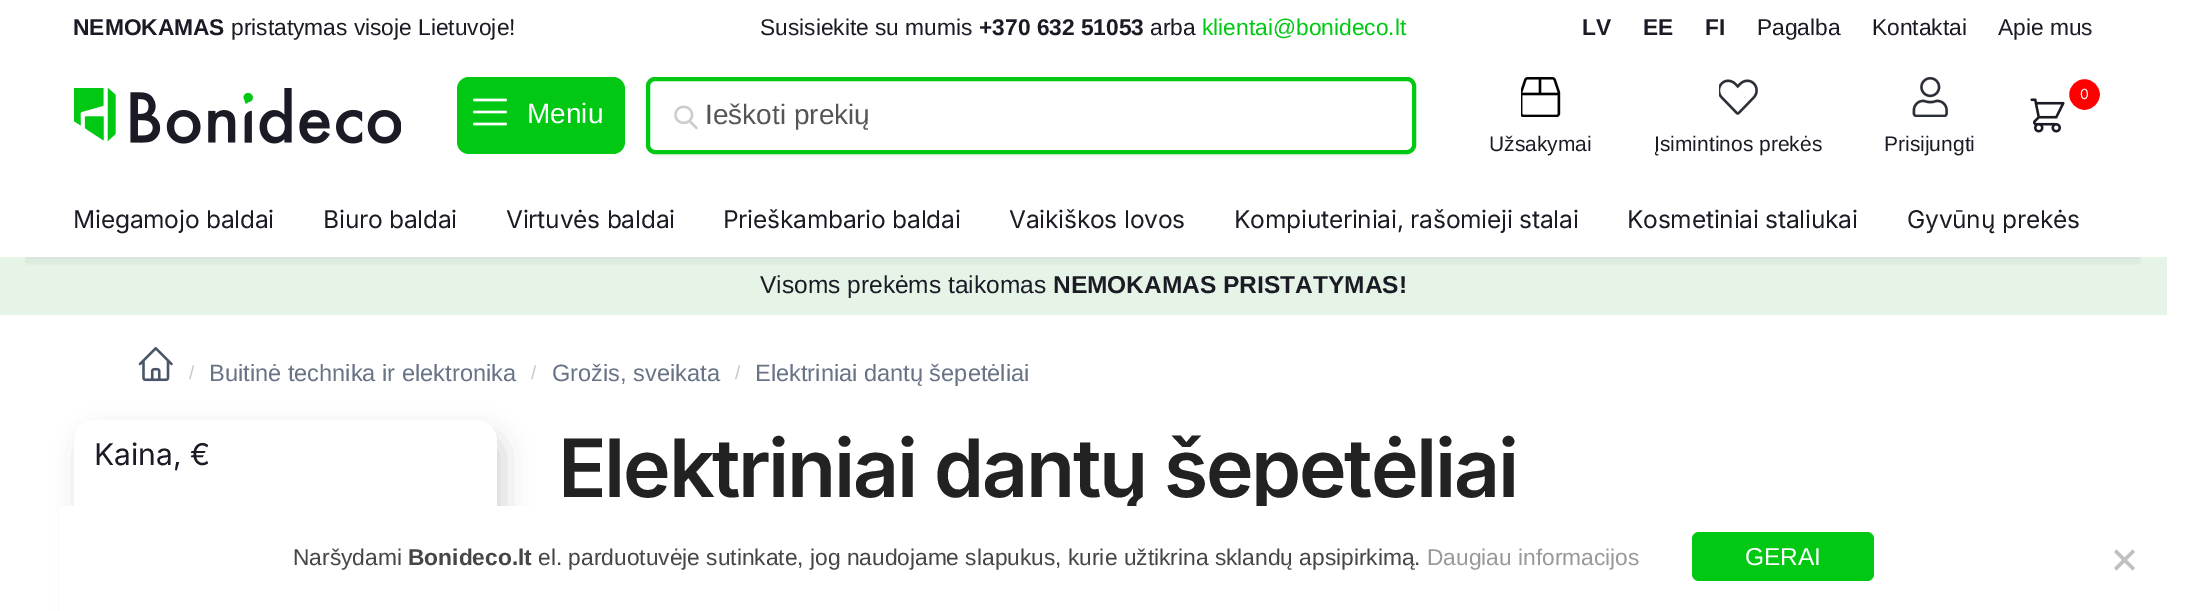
%!PS
<< /PageSize [2192 611] /PageUsesTransparency true >> setpagedevice
/alpha { dup .setfillconstantalpha .setstrokeconstantalpha } def
/roundrect { 5 dict begin { /r /h /w /y /x } { exch def } forall
  x r add y moveto x w add y 2 copy h add r arct x w add y h add x 1 index r arct
  x y h add x y r arct x y 2 copy exch w add exch r arct closepath end } def
/shadow { 12 dict begin { /a /b /q /h /w /y /x } { exch def } forall gsave /was 0 def
  9 -2 -9 { dup b mul 4 div /e exch def 1 sub .425 mul 2.718 exch exp 1 add a .99 .min exch div /now exch def
    1 1 now sub 1 was sub div sub alpha /was now def
    w h .min e 2 mul add 0 gt { x e sub y e sub w e 2 mul add h e 2 mul add
      q e add b .6 mul add w h .min 2 div e add .min 0 .max roundrect fill } if } for grestore end } def
/picture { 5 dict begin { /h /w /y /x /name } { exch def } forall
  gsave x y translate w h scale
  w h 8 [w 0 0 h 0 0] name (r) file false 3 colorimage grestore end } def
0 .pushpdf14devicefilter
0 611 translate 1 -1 scale
4 setmiterlimit
1 setgray
0 0 2192 611 rectfill
/LiberationSans-Bold [22.75 0 0 -22.75 0 0] selectfont
0.102 0.106 0.145 setrgbcolor
73 35 moveto (NEMOKAMAS) show
/LiberationSans-Regular [22.75 0 0 -22.75 0 0] selectfont
231 35 moveto (pristatymas visoje Lietuvoje!) show
760 35 moveto (Susisiekite su mumis) show
/LiberationSans-Bold [22.75 0 0 -22.75 0 0] selectfont
979 35 moveto (+370 632 51053) show
/LiberationSans-Regular [22.75 0 0 -22.75 0 0] selectfont
1150 35 moveto (arba) show
0.004 0.784 0.071 setrgbcolor
1202 35 moveto (klientai@bonideco.lt) show
/LiberationSans-Bold [22.75 0 0 -22.75 0 0] selectfont
0.102 0.106 0.145 setrgbcolor
1582 35 moveto (LV) show
1643 35 moveto (EE) show
1705 35 moveto (FI) show
/LiberationSans-Regular [22.75 0 0 -22.75 0 0] selectfont
1757 35 moveto (Pagalba) show
1872 35 moveto (Kontaktai) show
1998 35 moveto (Apie mus) show
(img1.rgb) 74 88 327 56 picture
1 0 0 setrgbcolor
newpath 2084.5 94.5 16.5 0 360 arc closepath gsave fill grestore
1 setgray
2 setlinewidth
stroke
/Inter-Regular [14 0 0 -14 0 0] selectfont
2080 99 moveto -0.2 0 (0) ashow
(img2.rgb) 2030 98 35 35 picture
0 0.784 0.075 setrgbcolor
457 77 168 77 12 roundrect fill
(img3.rgb) 473 98 34 28 picture
/LiberationSans-Regular [28 0 0 -28 0 0] selectfont
1 setgray
527 123 moveto (Meniu) show
0 setgray
646 79 770 77 9 2 0.05 shadow
1 setgray
648 79 766 73 7 roundrect gsave fill grestore
0 0.784 0.075 setrgbcolor
4 setlinewidth
stroke
0.8 setgray
2.3 setlinewidth
1 setlinecap
1 setlinejoin
newpath 696.5 128 moveto 689.5 121 lineto 692 115 moveto 692 125.5 675.5 125.5 675.5 115 curveto 675.5 104 692 104 692 115 curveto closepath stroke
0.333 setgray
705 124 moveto (Ieškoti prekių) show
(img4.rgb) 1521 77 40 40 picture
/LiberationSans-Regular [21 0 0 -21 0 0] selectfont
0.102 0.106 0.145 setrgbcolor
1489 151 moveto (Užsakymai) show
(img5.rgb) 1719 79 39 36 picture
1654 151 moveto (Įsimintinos prekės) show
(img6.rgb) 1912 77 36 40 picture
1884 151 moveto (Prisijungti) show
0.902 0.953 0.906 setrgbcolor
0 257 2167 58 rectfill
gsave
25 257 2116 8 rectclip
0 setgray
26 228 2114 29 0 9 0.1 shadow
grestore
/Inter-Regular [24.5 0 0 -24.5 0 0] selectfont
0.102 0.106 0.145 setrgbcolor
73 228 moveto -0.2 0 (Miegamojo baldai) ashow
323 228 moveto -0.2 0 (Biuro baldai) ashow
506 228 moveto -0.2 0 (Virtuvės baldai) ashow
723 228 moveto -0.2 0 (Prieškambario baldai) ashow
1009 228 moveto -0.2 0 (Vaikiškos lovos) ashow
1234 228 moveto -0.2 0 (Kompiuteriniai, rašomieji stalai) ashow
1627 228 moveto -0.2 0 (Kosmetiniai staliukai) ashow
1907 228 moveto -0.2 0 (Gyvūnų prekės) ashow
/LiberationSans-Regular [24.5 0 0 -24.5 0 0] selectfont
760 293 moveto (Visoms prekėms taikomas) show
/LiberationSans-Bold [24.5 0 0 -24.5 0 0] selectfont
1053 293 moveto (NEMOKAMAS PRISTATYMAS!) show
(img7.rgb) 138 347 35 35 picture
/LiberationSans-Regular [19 0 0 -19 0 0] selectfont
0.765 0.78 0.808 setrgbcolor
189 379 moveto (/) show
/LiberationSans-Regular [23.6 0 0 -23.6 0 0] selectfont
0.408 0.451 0.522 setrgbcolor
209 381 moveto (Buitinė technika ir elektronika) show
/LiberationSans-Regular [19 0 0 -19 0 0] selectfont
0.765 0.78 0.808 setrgbcolor
531 379 moveto (/) show
/LiberationSans-Regular [23.6 0 0 -23.6 0 0] selectfont
0.408 0.451 0.522 setrgbcolor
552 381 moveto (Grožis, sveikata) show
/LiberationSans-Regular [19 0 0 -19 0 0] selectfont
0.765 0.78 0.808 setrgbcolor
735 379 moveto (/) show
/LiberationSans-Regular [23.6 0 0 -23.6 0 0] selectfont
0.408 0.451 0.522 setrgbcolor
755 381 moveto (Elektriniai dantų šepetėliai) show
gsave
newpath 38 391 moveto 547 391 lineto 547 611 lineto 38 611 lineto closepath 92 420 moveto 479 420 lineto 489 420 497 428 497 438 curveto 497 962 lineto 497 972 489 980 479 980 curveto 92 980 lineto 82 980 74 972 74 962 curveto 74 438 lineto 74 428 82 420 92 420 curveto closepath eoclip newpath
0 setgray
81 434 423 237 18 14 0.16 shadow
grestore
/Inter-Regular [30 0 0 -30 0 0] selectfont
0.102 0.106 0.145 setrgbcolor
94 465 moveto (Kaina, €) show
/Inter-SemiBold [80.5 0 0 -80.5 0 0] selectfont
0.133 setgray
558 497 moveto -2.25 0 (Elektriniai dantų šepetėliai) ashow
1 setgray
60 506 1207 105 rectfill
/LiberationSans-Regular [22.75 0 0 -22.75 0 0] selectfont
0.267 0.275 0.278 setrgbcolor
293 565 moveto (Naršydami) show
/LiberationSans-Bold [22.75 0 0 -22.75 0 0] selectfont
408 565 moveto (Bonideco.lt) show
/LiberationSans-Regular [22.75 0 0 -22.75 0 0] selectfont
538 565 moveto (el. parduotuvėje sutinkate, jog naudojame slapukus, kurie užtikrina sklandų apsipirkimą.) show
0.6 setgray
1427 565 moveto (Daugiau informacijos) show
0 0.784 0.075 setrgbcolor
1692 532 182 49 7 roundrect fill
/LiberationSans-Regular [24.5 0 0 -24.5 0 0] selectfont
1 setgray
1745 565 moveto (GERAI) show
0.753 setgray
newpath 2132.5 549.5 moveto 2135 552 lineto 2116.5 570.5 lineto 2114 568 lineto closepath fill
newpath 2114 552 moveto 2116.5 549.5 lineto 2135 568 lineto 2132.5 570.5 lineto closepath fill
.poppdf14devicefilter showpage
